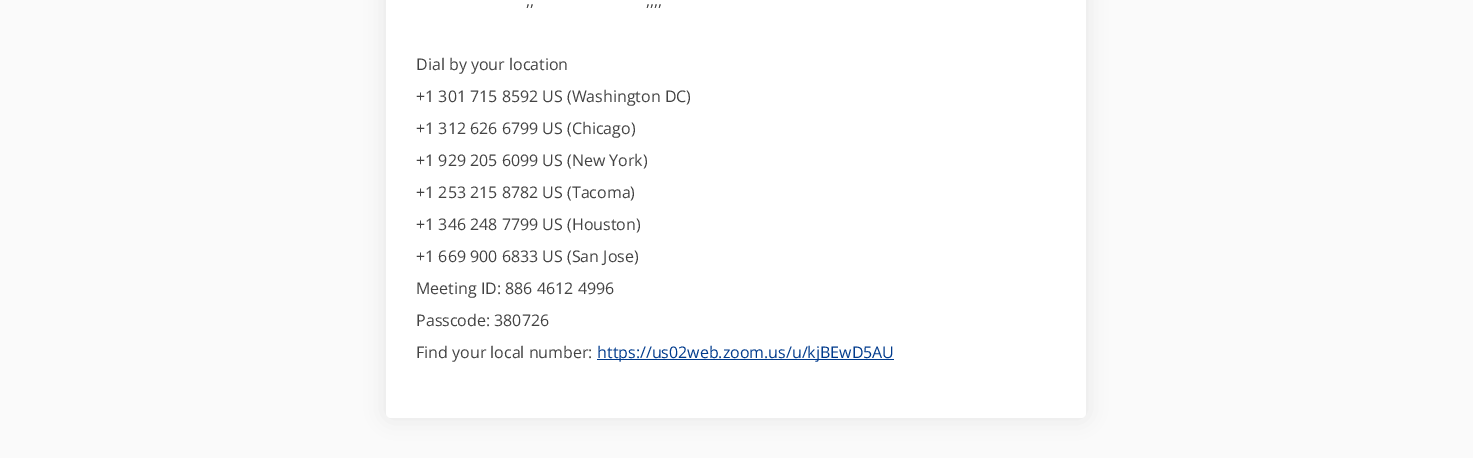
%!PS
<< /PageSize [1473 458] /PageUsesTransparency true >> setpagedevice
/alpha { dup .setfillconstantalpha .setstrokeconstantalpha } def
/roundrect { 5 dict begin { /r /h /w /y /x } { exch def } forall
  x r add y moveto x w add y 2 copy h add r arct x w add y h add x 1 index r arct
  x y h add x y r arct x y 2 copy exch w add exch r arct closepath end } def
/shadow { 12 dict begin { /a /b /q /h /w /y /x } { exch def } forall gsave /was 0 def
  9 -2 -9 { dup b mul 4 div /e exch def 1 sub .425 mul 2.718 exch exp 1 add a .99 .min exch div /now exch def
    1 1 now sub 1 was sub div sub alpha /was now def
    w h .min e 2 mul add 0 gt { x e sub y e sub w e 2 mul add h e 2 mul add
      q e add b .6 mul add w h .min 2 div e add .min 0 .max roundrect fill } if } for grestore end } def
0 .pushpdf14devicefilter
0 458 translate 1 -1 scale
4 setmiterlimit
0.98 setgray
0 0 1473 458 rectfill
0 setgray
386 -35 700 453 5 10 0.08 shadow
1 setgray
386 -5 700 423 5 roundrect fill
/OpenSans-Regular [16 0 0 -16 0 0] selectfont
0.263 setgray
526 6 moveto (,,) show
646 6 moveto (,,,,) show
416 70 moveto (Dial by your location) show
416 102 moveto (+1 301 715 8592 US \(Washington DC\)) show
416 134 moveto (+1 312 626 6799 US \(Chicago\)) show
416 166 moveto (+1 929 205 6099 US \(New York\)) show
416 198 moveto (+1 253 215 8782 US \(Tacoma\)) show
416 230 moveto (+1 346 248 7799 US \(Houston\)) show
416 262 moveto (+1 669 900 6833 US \(San Jose\)) show
416 294 moveto (Meeting ID: 886 4612 4996) show
416 326 moveto (Passcode: 380726) show
416 358 moveto (Find your local number:) show
0 0.227 0.549 setrgbcolor
597 359 297 1 rectfill
597 358 moveto (https://us02web.zoom.us/u/kjBEwD5AU) show
.poppdf14devicefilter showpage
